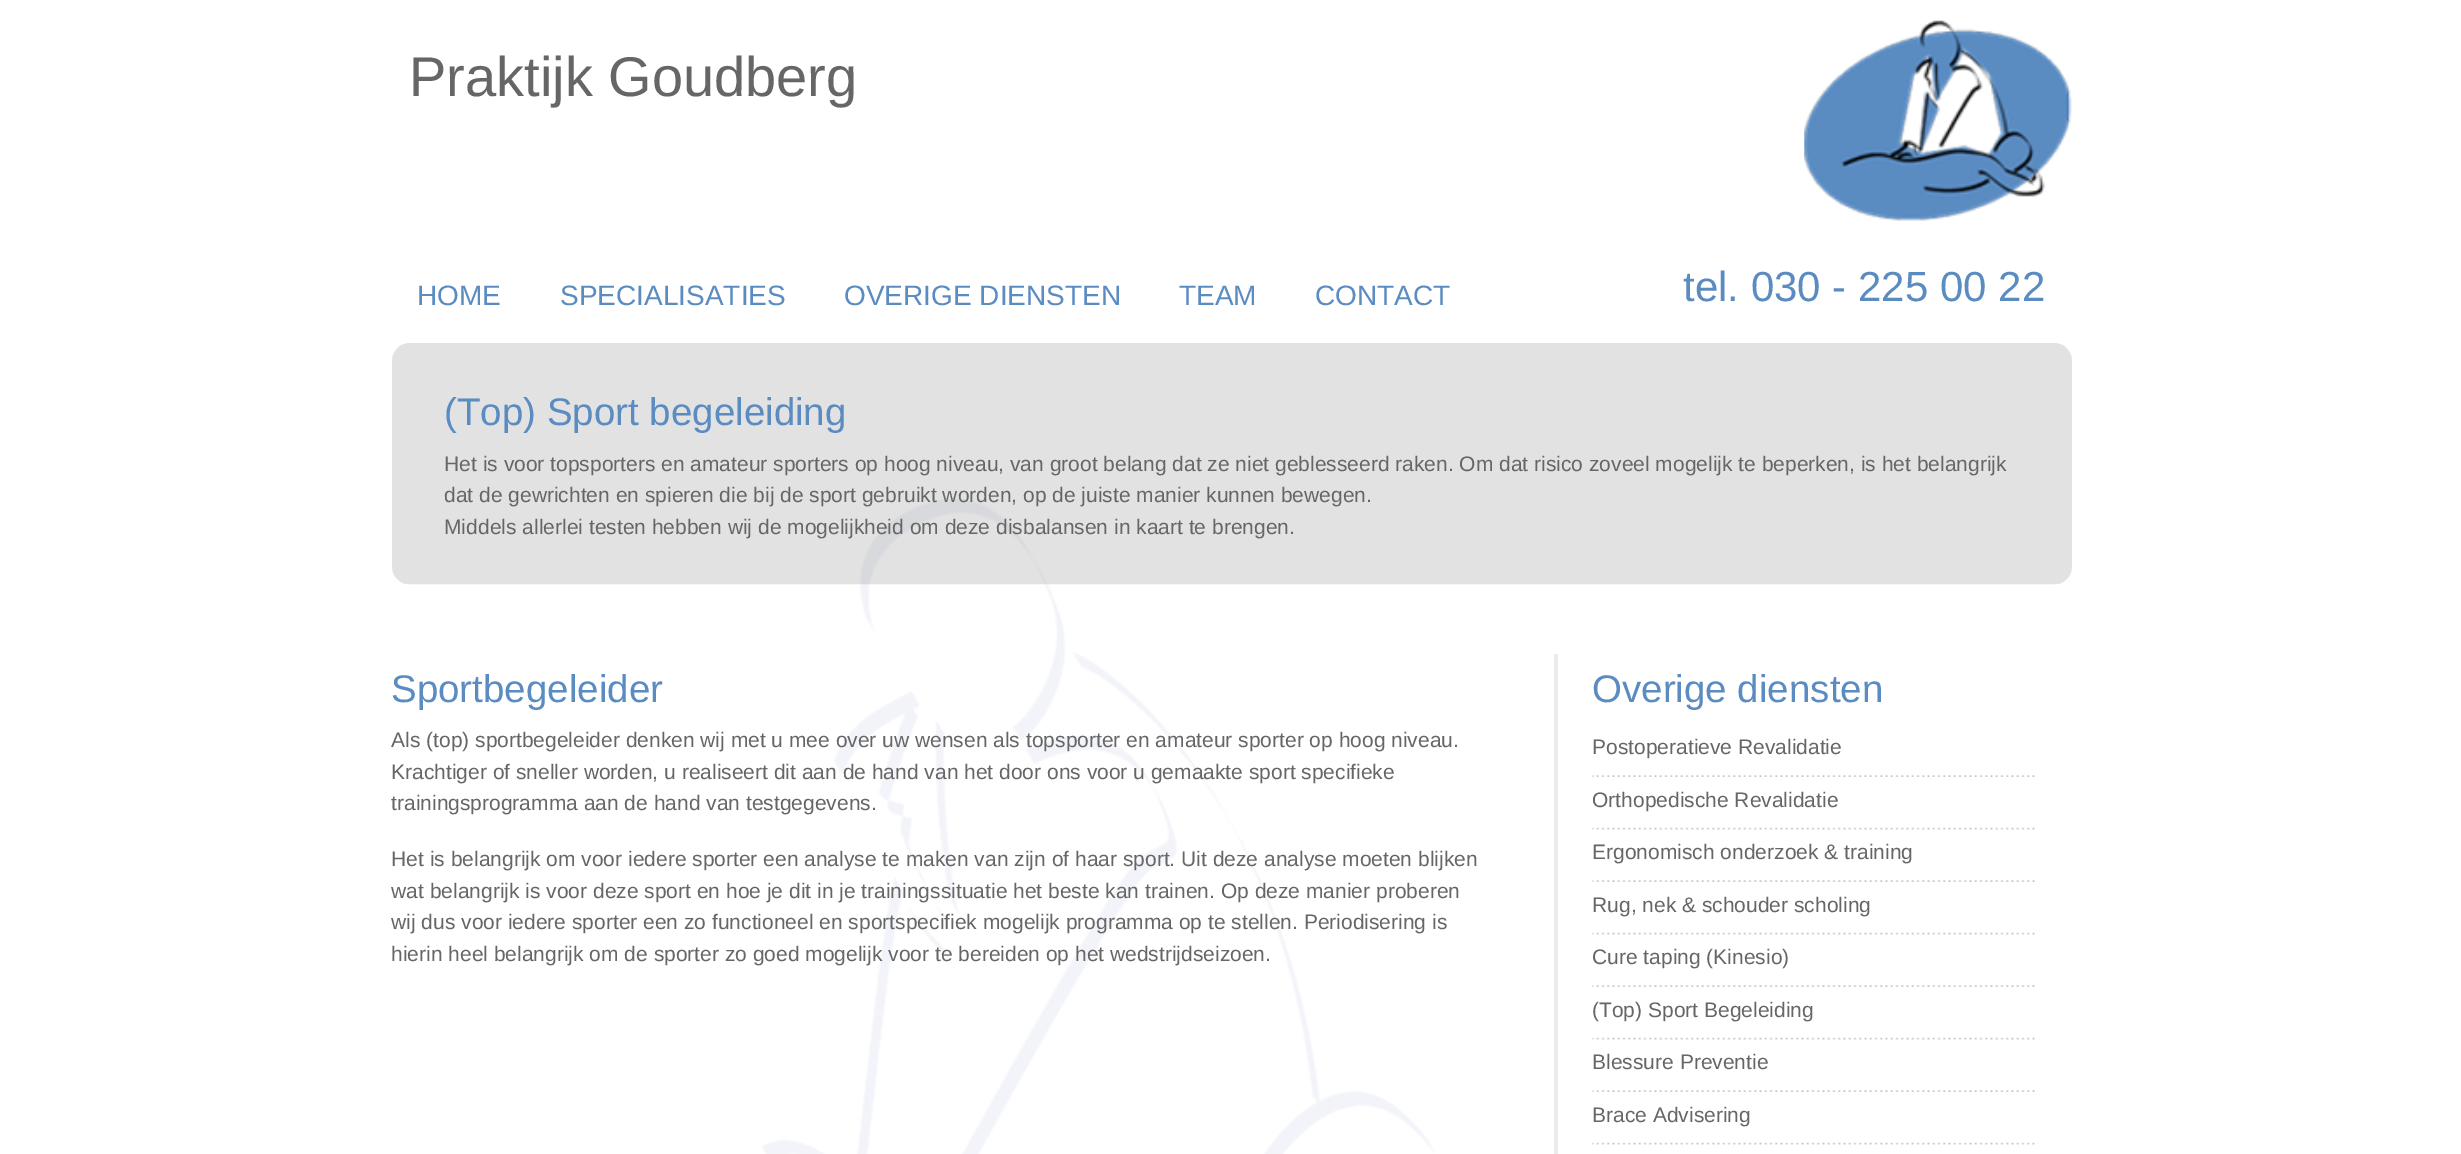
%!PS
<< /PageSize [2461 1154] >> setpagedevice
/picture { 5 dict begin { /h /w /y /x /name } { exch def } forall
  gsave x y translate w h scale
  w h 8 [w 0 0 h 0 0] name (r) file false 3 colorimage grestore end } def
0 1154 translate 1 -1 scale
4 setmiterlimit
1 setgray
0 0 2461 1154 rectfill
(img1.rgb) 762 498 673 656 picture
/LiberationSans-Regular [56 0 0 -56 0 0] selectfont
0.4 setgray
409 96 moveto (Praktijk Goudberg) show
(img2.rgb) 1804 20 268 201 picture
/LiberationSans-Regular [28 0 0 -28 0 0] selectfont
0.353 0.545 0.757 setrgbcolor
417 305 moveto (HOME) show
560 305 moveto (SPECIALISATIES) show
844 305 moveto (OVERIGE DIENSTEN) show
1179 305 moveto (TEAM) show
1315 305 moveto (CONTACT) show
/LiberationSans-Regular [42 0 0 -42 0 0] selectfont
1683 301 moveto (tel. 030 - 225 00 22) show
(img3.rgb) 392 343 1680 242 picture
/LiberationSans-Regular [38.5 0 0 -38.5 0 0] selectfont
444 425 moveto (\(Top\) Sport begeleiding) show
/LiberationSans-Regular [21 0 0 -21 0 0] selectfont
0.4 setgray
444 471 moveto (Het is voor topsporters en amateur sporters op hoog niveau, van groot belang dat ze niet geblesseerd raken. Om dat risico zoveel mogelijk te beperken, is het belangrijk) show
444 502 moveto (dat de gewrichten en spieren die bij de sport gebruikt worden, op de juiste manier kunnen bewegen.) show
444 534 moveto (Middels allerlei testen hebben wij de mogelijkheid om deze disbalansen in kaart te brengen.) show
/LiberationSans-Regular [38.5 0 0 -38.5 0 0] selectfont
0.353 0.545 0.757 setrgbcolor
391 702 moveto (Sportbegeleider) show
/LiberationSans-Regular [21 0 0 -21 0 0] selectfont
0.4 setgray
391 747 moveto (Als \(top\) sportbegeleider denken wij met u mee over uw wensen als topsporter en amateur sporter op hoog niveau.) show
391 779 moveto (Krachtiger of sneller worden, u realiseert dit aan de hand van het door ons voor u gemaakte sport specifieke) show
391 810 moveto (trainingsprogramma aan de hand van testgegevens.) show
391 866 moveto (Het is belangrijk om voor iedere sporter een analyse te maken van zijn of haar sport. Uit deze analyse moeten blijken) show
391 898 moveto (wat belangrijk is voor deze sport en hoe je dit in je trainingssituatie het beste kan trainen. Op deze manier proberen) show
391 929 moveto (wij dus voor iedere sporter een zo functioneel en sportspecifiek mogelijk programma op te stellen. Periodisering is) show
391 961 moveto (hierin heel belangrijk om de sporter zo goed mogelijk voor te bereiden op het wedstrijdseizoen.) show
0.922 setgray
newpath 1554 654 moveto 2072 654 lineto 2072 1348 lineto 1572 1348 lineto 1562 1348 1554 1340 1554 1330 curveto closepath 1558 654 moveto 2072 654 lineto 2072 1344 lineto 1572 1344 lineto 1564 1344 1558 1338 1558 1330 curveto closepath eofill
/LiberationSans-Regular [38.5 0 0 -38.5 0 0] selectfont
0.353 0.545 0.757 setrgbcolor
1592 702 moveto (Overige diensten) show
(img4.rgb) 1592 775 443 2 picture
/LiberationSans-Regular [21 0 0 -21 0 0] selectfont
0.4 setgray
1592 754 moveto (Postoperatieve Revalidatie) show
(img5.rgb) 1592 827 443 3 picture
1592 807 moveto (Orthopedische Revalidatie) show
(img4.rgb) 1592 880 443 2 picture
1592 859 moveto (Ergonomisch onderzoek & training) show
(img5.rgb) 1592 932 443 3 picture
1592 912 moveto (Rug, nek & schouder scholing) show
(img4.rgb) 1592 985 443 2 picture
1592 964 moveto (Cure taping \(Kinesio\)) show
(img5.rgb) 1592 1037 443 3 picture
1592 1017 moveto (\(Top\) Sport Begeleiding) show
(img4.rgb) 1592 1090 443 2 picture
1592 1069 moveto (Blessure Preventie) show
(img5.rgb) 1592 1142 443 3 picture
1592 1122 moveto (Brace Advisering) show
showpage
